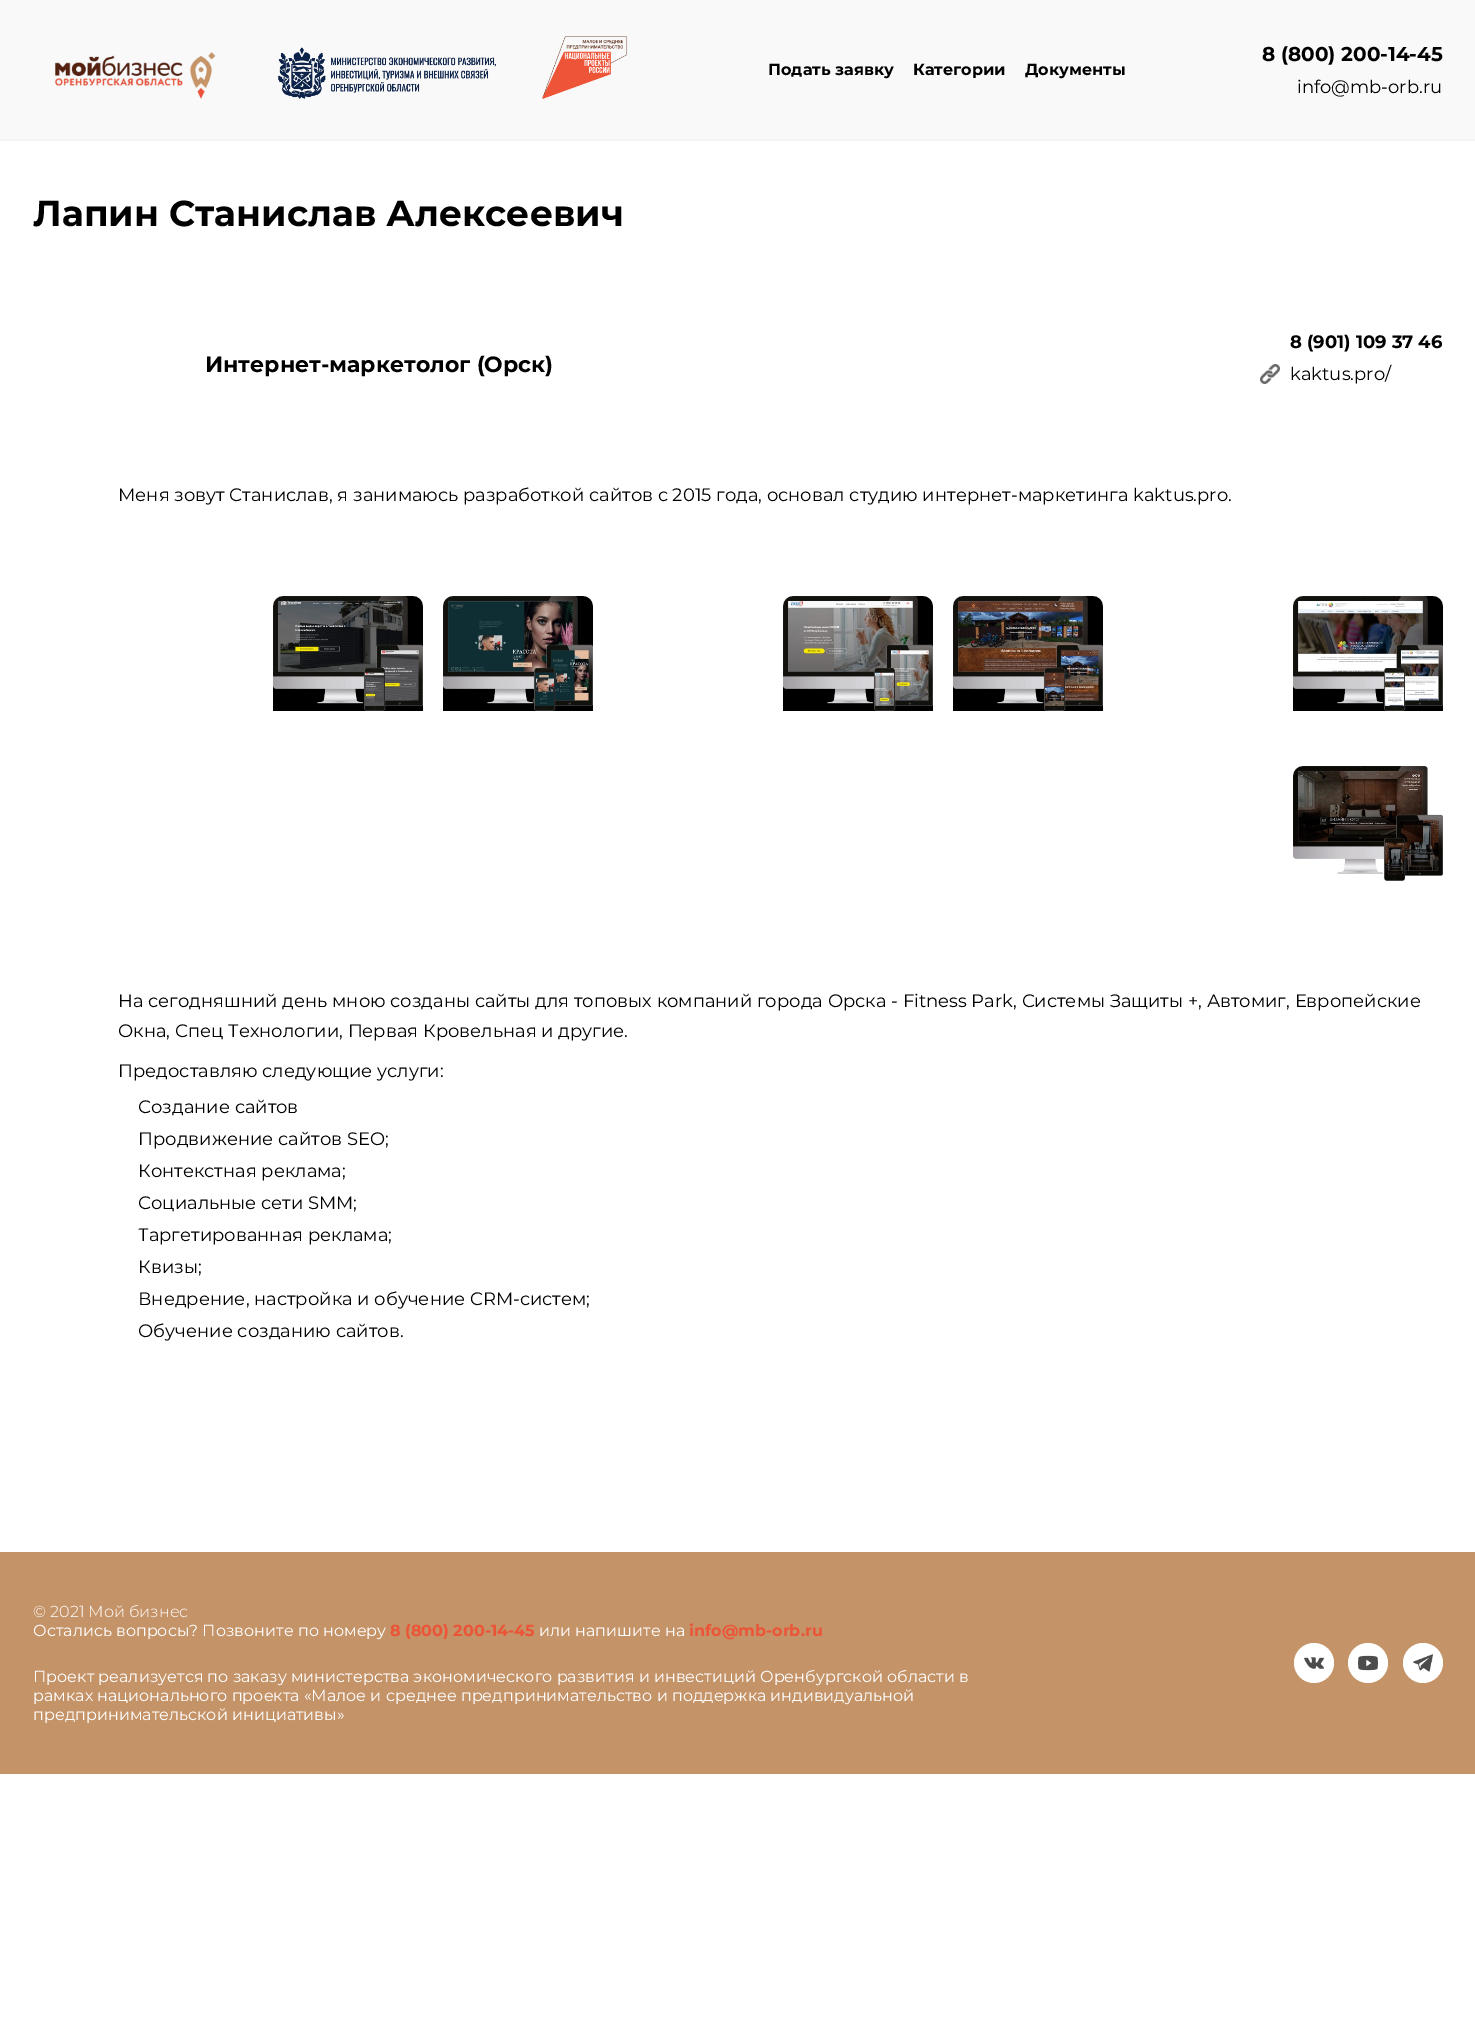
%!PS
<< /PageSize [1475 2027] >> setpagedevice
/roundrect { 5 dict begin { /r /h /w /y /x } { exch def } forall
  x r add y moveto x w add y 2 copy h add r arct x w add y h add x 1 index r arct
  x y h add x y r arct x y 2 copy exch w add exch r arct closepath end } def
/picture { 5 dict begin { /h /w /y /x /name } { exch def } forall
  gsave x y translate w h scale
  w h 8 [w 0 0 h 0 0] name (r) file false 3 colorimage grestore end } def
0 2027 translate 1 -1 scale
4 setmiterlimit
1 setgray
0 0 1475 2027 rectfill
0.976 setgray
0 0 1475 139 rectfill
0.957 setgray
0 139 1475 2 rectfill
(img1.rgb) 55 52 161 47 picture
(img2.rgb) 278 47 218 52 picture
(img3.rgb) 542 36 86 63 picture
/Montserrat-Bold [16 0 0 -16 0 0] selectfont
0 setgray
768 75 moveto (Подать заявку) show
913 75 moveto (Категории) show
1025 75 moveto (Документы) show
/Montserrat-Bold [20 0 0 -20 0 0] selectfont
1262 61 moveto (8 \(800\) 200-14-45) show
/Montserrat-Regular [18 0 0 -18 0 0] selectfont
1297 93 moveto (info@mb-orb.ru) show
/Montserrat-Bold [36 0 0 -36 0 0] selectfont
33 226 moveto (Лапин Станислав Алексеевич) show
/Montserrat-Bold [22 0 0 -22 0 0] selectfont
205 372 moveto (Интернет-маркетолог \(Орск\)) show
/Montserrat-Bold [18 0 0 -18 0 0] selectfont
1290 348 moveto (8 \(901\) 109 37 46) show
(img4.rgb) 1260 364 20 20 picture
/Montserrat-Regular [18 0 0 -18 0 0] selectfont
1290 380 moveto (kaktus.pro/) show
118 501 moveto (Меня зовут Станислав, я занимаюсь разработкой сайтов с 2015 года, основал студию интернет-маркетинга kaktus.pro.) show
(img5.rgb) 273 596 150 115 picture
(img6.rgb) 443 596 150 115 picture
(img7.rgb) 783 596 150 115 picture
(img8.rgb) 953 596 150 115 picture
(img9.rgb) 1293 596 150 115 picture
(img10.rgb) 1293 766 150 115 picture
118 1007 moveto (На сегодняшний день мною созданы сайты для топовых компаний города Орска - Fitness Park, Системы Защиты +, Автомиг, Европейские) show
118 1037 moveto (Окна, Спец Технологии, Первая Кровельная и другие.) show
118 1077 moveto (Предоставляю следующие услуги:) show
138 1113 moveto (Создание сайтов) show
138 1145 moveto (Продвижение сайтов SEO;) show
138 1177 moveto (Контекстная реклама;) show
138 1209 moveto (Социальные сети SMM;) show
gsave
138 1224 1325 22 10 roundrect clip newpath
138 1241 moveto (Таргетированная реклама;) show
grestore
138 1273 moveto (Квизы;) show
138 1305 moveto (Внедрение, настройка и обучение CRM-систем;) show
138 1337 moveto (Обучение созданию сайтов.) show
0.773 0.576 0.408 setrgbcolor
0 1552 1475 222 rectfill
/Montserrat-Light [16 0 0 -16 0 0] selectfont
1 setgray
33 1617 moveto (© 2021 Мой бизнес) show
/Montserrat-Regular [16 0 0 -16 0 0] selectfont
33 1636 moveto (Остались вопросы? Позвоните по номеру) show
/Montserrat-Bold [16 0 0 -16 0 0] selectfont
0.925 0.329 0.22 setrgbcolor
390 1636 moveto (8 \(800\) 200-14-45) show
/Montserrat-Regular [16 0 0 -16 0 0] selectfont
1 setgray
539 1636 moveto (или напишите на) show
/Montserrat-Bold [16 0 0 -16 0 0] selectfont
0.925 0.329 0.22 setrgbcolor
689 1636 moveto (info@mb-orb.ru) show
/Montserrat-Regular [16 0 0 -16 0 0] selectfont
1 setgray
33 1682 moveto (Проект реализуется по заказу министерства экономического развития и инвестиций Оренбургской области в) show
33 1701 moveto (рамках национального проекта «Малое и среднее предпринимательство и поддержка индивидуальной) show
33 1720 moveto (предпринимательской инициативы») show
newpath 1314 1663 20 0 360 arc closepath fill
(img11.rgb) 1304 1657 20 12 picture
newpath 1368 1663 20 0 360 arc closepath fill
(img12.rgb) 1358 1655 20 16 picture
newpath 1423 1663 20 0 360 arc closepath fill
(img13.rgb) 1413 1654 20 18 picture
showpage
